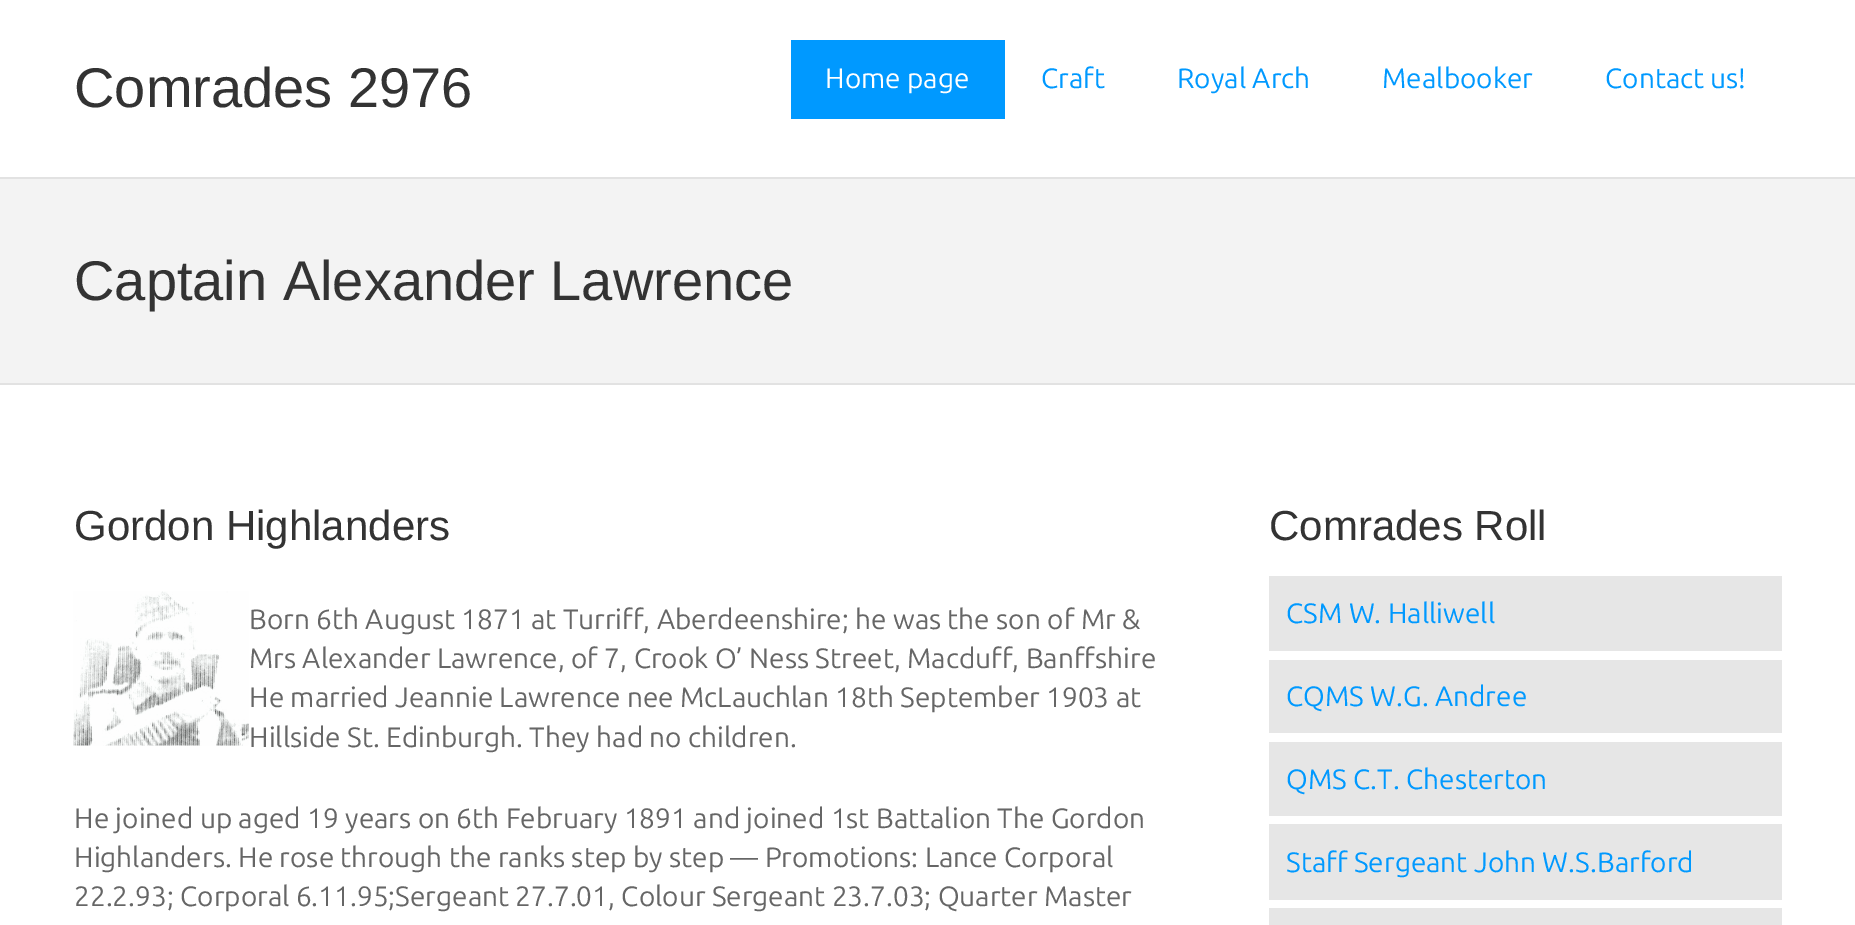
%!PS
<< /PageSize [1855 925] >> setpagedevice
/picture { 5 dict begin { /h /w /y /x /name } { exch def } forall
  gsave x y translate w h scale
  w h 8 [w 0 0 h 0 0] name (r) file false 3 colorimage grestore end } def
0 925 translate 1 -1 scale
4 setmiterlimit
1 setgray
0 0 1855 925 rectfill
/LiberationSans-Regular [56 0 0 -56 0 0] selectfont
0.2 setgray
74 107 moveto (Comrades 2976) show
0 0.6 1 setrgbcolor
791 40 214 79 rectfill
/Ubuntu-Regular [28 0 0 -28 0 0] selectfont
1 setgray
825 88 moveto (Home page) show
0 0.6 1 setrgbcolor
1041 88 moveto (Craft) show
1177 88 moveto (Royal Arch) show
1382 88 moveto (Mealbooker) show
1605 88 moveto (Contact us!) show
0.953 setgray
0 179 1855 204 rectfill
0.886 setgray
0 177 1855 2 rectfill
0 383 1855 2 rectfill
/LiberationSans-Regular [56 0 0 -56 0 0] selectfont
0.2 setgray
74 300 moveto (Captain Alexander Lawrence) show
/LiberationSans-Regular [42 0 0 -42 0 0] selectfont
74 540 moveto (Gordon Highlanders) show
(img1.rgb) 73 591 176 155 picture
/Ubuntu-Regular [28 0 0 -28 0 0] selectfont
0.4 setgray
249 629 moveto (Born 6th August 1871 at Turriff, Aberdeenshire; he was the son of Mr &) show
249 668 moveto (Mrs Alexander Lawrence, of 7, Crook O’ Ness Street, Macduff, Banffshire) show
249 707 moveto (He married Jeannie Lawrence nee McLauchlan 18th September 1903 at) show
249 747 moveto (Hillside St. Edinburgh. They had no children.) show
74 828 moveto (He joined up aged 19 years on 6th February 1891 and joined 1st Battalion The Gordon) show
74 867 moveto (Highlanders. He rose through the ranks step by step — Promotions: Lance Corporal) show
74 906 moveto (22.2.93; Corporal 6.11.95;Sergeant 27.7.01, Colour Sergeant 23.7.03; Quarter Master) show
/LiberationSans-Regular [42 0 0 -42 0 0] selectfont
0.2 setgray
1269 540 moveto (Comrades Roll) show
0.902 setgray
1269 576 513 75 rectfill
/Ubuntu-Regular [28 0 0 -28 0 0] selectfont
0 0.6 1 setrgbcolor
1286 623 moveto (CSM W. Halliwell) show
0.902 setgray
1269 660 513 73 rectfill
0 0.6 1 setrgbcolor
1286 706 moveto (CQMS W.G. Andree) show
0.902 setgray
1269 742 513 74 rectfill
0 0.6 1 setrgbcolor
1286 789 moveto (QMS C.T. Chesterton) show
0.902 setgray
1269 824 513 76 rectfill
0 0.6 1 setrgbcolor
1286 872 moveto (Staff Sergeant John W.S.Barford) show
0.902 setgray
1269 908 513 17 rectfill
showpage
